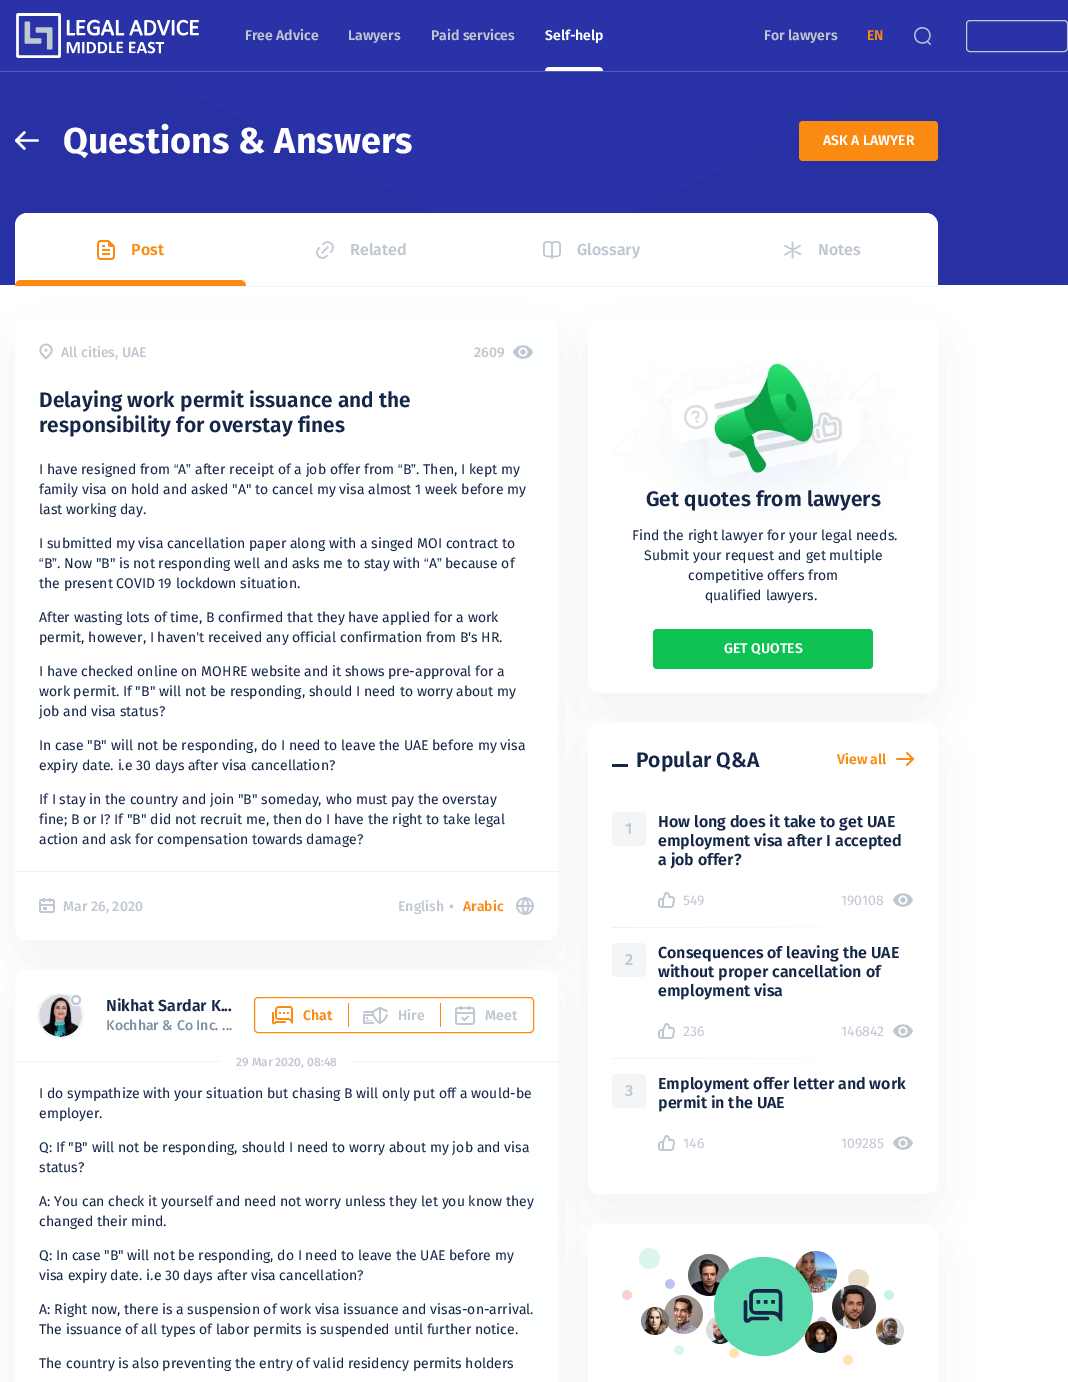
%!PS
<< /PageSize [1068 1382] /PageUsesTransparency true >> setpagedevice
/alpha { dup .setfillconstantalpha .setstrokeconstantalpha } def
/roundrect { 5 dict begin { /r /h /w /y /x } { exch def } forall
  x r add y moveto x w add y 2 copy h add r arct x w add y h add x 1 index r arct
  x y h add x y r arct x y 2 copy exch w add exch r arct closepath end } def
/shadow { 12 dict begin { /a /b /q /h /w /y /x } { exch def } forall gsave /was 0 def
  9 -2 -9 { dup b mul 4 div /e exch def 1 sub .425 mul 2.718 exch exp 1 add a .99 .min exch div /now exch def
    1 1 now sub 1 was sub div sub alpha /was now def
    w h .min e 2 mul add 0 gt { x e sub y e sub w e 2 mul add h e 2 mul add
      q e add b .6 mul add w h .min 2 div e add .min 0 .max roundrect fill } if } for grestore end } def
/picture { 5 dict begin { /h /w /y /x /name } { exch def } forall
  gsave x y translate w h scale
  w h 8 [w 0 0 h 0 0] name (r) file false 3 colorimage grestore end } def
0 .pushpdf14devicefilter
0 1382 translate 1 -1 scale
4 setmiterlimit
1 setgray
0 0 1068 1382 rectfill
0.161 0.2 0.655 setrgbcolor
0 0 1068 71 rectfill
0.329 0.361 0.725 setrgbcolor
0 71 1068 1 rectfill
(img1.rgb) 16 13 183 45 picture
/FiraSans-SemiBold [14 0 0 -14 0 0] selectfont
0.749 0.78 0.82 setrgbcolor
245 40 moveto (Free Advice) show
348 40 moveto (Lawyers) show
431 40 moveto (Paid services) show
1 setgray
545 40 moveto (Self-help) show
newpath 549 67 moveto 599 67 lineto 601 67 603 69 603 71 curveto 545 71 lineto 545 69 547 67 549 67 curveto closepath fill
0.749 0.78 0.82 setrgbcolor
764 40 moveto (For lawyers) show
0.984 0.541 0.075 setrgbcolor
867 40 moveto (EN) show
(img2.rgb) 914 27 17 18 picture
0.749 0.78 0.82 setrgbcolor
966.5 20.5 101 31 3.5 roundrect stroke
(img3.rgb) 0 72 1068 213 picture
(img4.rgb) 15 131 24 19 picture
/FiraSans-Bold [36 0 0 -36 0 0] selectfont
1 setgray
63 153 moveto (Questions & Answers) show
0.984 0.541 0.075 setrgbcolor
799 121 139 40 4 roundrect fill
/FiraSans-SemiBold [14 0 0 -14 0 0] selectfont
1 setgray
823 145 moveto (ASK A LAWYER) show
0.749 0.78 0.82 setrgbcolor
15 337 543 623 12 30 0.24 shadow
1 setgray
15 317 543 623 12 roundrect fill
0.749 0.78 0.82 setrgbcolor
588 337 350 376 12 30 0.24 shadow
1 setgray
newpath 27 213 moveto 926 213 lineto 932.5 213 938 218.5 938 225 curveto 938 287 lineto 15 287 lineto 15 225 lineto 15 218.5 20.5 213 27 213 curveto closepath fill
0.941 0.949 0.957 setrgbcolor
15 286 923 1 rectfill
(img5.rgb) 97 240 18 20 picture
/FiraSans-SemiBold [16 0 0 -16 0 0] selectfont
0.984 0.541 0.075 setrgbcolor
131 255 moveto (Post) show
newpath 21 280 moveto 240 280 lineto 243.5 280 246 282.5 246 286 curveto 15 286 lineto 15 282.5 17.5 280 21 280 curveto closepath fill
(img6.rgb) 316 241 18 18 picture
0.749 0.78 0.82 setrgbcolor
350 255 moveto (Related) show
(img7.rgb) 543 241 18 18 picture
577 255 moveto (Glossary) show
(img8.rgb) 784 241 18 18 picture
818 255 moveto (Notes) show
(img9.rgb) 39 343 14 17 picture
/FiraSans-Medium [14 0 0 -14 0 0] selectfont
61 357 moveto (All cities, UAE) show
474 357 moveto (2609) show
(img10.rgb) 513 345 20 14 picture
/FiraSans-SemiBold [21 0 0 -21 0 0] selectfont
0.082 0.149 0.278 setrgbcolor
39 407 moveto (Delaying work permit issuance and the) show
39 432 moveto (responsibility for overstay fines) show
0.941 0.949 0.957 setrgbcolor
15 871 543 1 rectfill
/FiraSans-Regular [14 0 0 -14 0 0] selectfont
0.082 0.149 0.278 setrgbcolor
39 474 moveto (I have resigned from) show
/LiberationSans-Regular [14 0 0 -14 0 0] selectfont
174 474 moveto (“) show
/FiraSans-Regular [14 0 0 -14 0 0] selectfont
178 474 moveto (A) show
/LiberationSans-Regular [14 0 0 -14 0 0] selectfont
186 474 moveto (”) show
/FiraSans-Regular [14 0 0 -14 0 0] selectfont
195 474 moveto (after receipt of a job offer from) show
/LiberationSans-Regular [14 0 0 -14 0 0] selectfont
398 474 moveto (“) show
/FiraSans-Regular [14 0 0 -14 0 0] selectfont
403 474 moveto (B) show
/LiberationSans-Regular [14 0 0 -14 0 0] selectfont
411 474 moveto (”) show
/FiraSans-Regular [14 0 0 -14 0 0] selectfont
416 474 moveto (. Then, I kept my) show
39 494 moveto (family visa on hold and asked "A" to cancel my visa almost 1 week before my) show
39 514 moveto (last working day.) show
39 548 moveto (I submitted my visa cancellation paper along with a singed MOI contract to) show
/LiberationSans-Regular [14 0 0 -14 0 0] selectfont
39 568 moveto (“) show
/FiraSans-Regular [14 0 0 -14 0 0] selectfont
44 568 moveto (B) show
/LiberationSans-Regular [14 0 0 -14 0 0] selectfont
52 568 moveto (”) show
/FiraSans-Regular [14 0 0 -14 0 0] selectfont
57 568 moveto (. Now "B" is not responding well and asks me to stay with) show
/LiberationSans-Regular [14 0 0 -14 0 0] selectfont
424 568 moveto (“) show
/FiraSans-Regular [14 0 0 -14 0 0] selectfont
429 568 moveto (A) show
/LiberationSans-Regular [14 0 0 -14 0 0] selectfont
437 568 moveto (”) show
/FiraSans-Regular [14 0 0 -14 0 0] selectfont
445 568 moveto (because of) show
39 588 moveto (the present COVID 19 lockdown situation.) show
39 622 moveto (After wasting lots of time, B confirmed that they have applied for a work) show
39 642 moveto (permit, however, I haven) show
/LiberationSans-Regular [14 0 0 -14 0 0] selectfont
196 642 moveto (’) show
/FiraSans-Regular [14 0 0 -14 0 0] selectfont
199 642 moveto (t received any official confirmation from B's HR.) show
39 676 moveto (I have checked online on MOHRE website and it shows pre-approval for a) show
39 696 moveto (work permit. If "B" will not be responding, should I need to worry about my) show
39 716 moveto (job and visa status?) show
39 750 moveto (In case "B" will not be responding, do I need to leave the UAE before my visa) show
39 770 moveto (expiry date. i.e 30 days after visa cancellation?) show
39 804 moveto (If I stay in the country and join "B" someday, who must pay the overstay) show
39 824 moveto (fine; B or I? If "B" did not recruit me, then do I have the right to take legal) show
39 844 moveto (action and ask for compensation towards damage?) show
0.749 0.78 0.82 setrgbcolor
15 990 543 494 12 30 0.24 shadow
(img11.rgb) 39 898 16 15 picture
/FiraSans-Medium [14 0 0 -14 0 0] selectfont
63 911 moveto (Mar 26, 2020) show
398 911 moveto (English) show
/LiberationSans-Regular [14 0 0 -14 0 0] selectfont
449 911 moveto (•) show
/FiraSans-Medium [14 0 0 -14 0 0] selectfont
0.984 0.541 0.075 setrgbcolor
463 911 moveto (Arabic) show
(img12.rgb) 516 897 18 18 picture
1 setgray
15 970 543 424 12 roundrect fill
(img13.rgb) 39 994 43 43 picture
gsave
31 994 207 45 rectclip
0.957 0.961 0.969 setrgbcolor
2 setlinewidth
newpath 60.5 1015.5 22.5 0 360 arc closepath stroke
grestore
newpath 76 1000 6 0 360 arc closepath fill
0.749 0.78 0.82 setrgbcolor
2 setlinewidth
newpath 76 1000 4 0 360 arc closepath stroke
/FiraSans-SemiBold [16 0 0 -16 0 0] selectfont
0.082 0.149 0.278 setrgbcolor
106 1011 moveto (Nikhat Sardar K...) show
/FiraSans-Medium [14 0 0 -14 0 0] selectfont
0.498 0.561 0.643 setrgbcolor
106 1030 moveto (Kochhar & Co Inc. ...) show
0.984 0.541 0.075 setrgbcolor
1 setlinewidth
254.5 997.5 279 35 3.5 roundrect stroke
(img14.rgb) 272 1006 21 19 picture
/FiraSans-SemiBold [14 0 0 -14 0 0] selectfont
303 1020 moveto (Chat) show
348 1003 1 24 rectfill
(img15.rgb) 363 1007 25 17 picture
0.749 0.78 0.82 setrgbcolor
398 1020 moveto (Hire) show
0.984 0.541 0.075 setrgbcolor
440 1003 1 24 rectfill
(img16.rgb) 455 1006 20 19 picture
0.749 0.78 0.82 setrgbcolor
485 1020 moveto (Meet) show
0.941 0.949 0.957 setrgbcolor
15 1061 205 1 rectfill
/FiraSans-Medium [12 0 0 -12 0 0] selectfont
0.749 0.78 0.82 setrgbcolor
236 1066 moveto (29 Mar 2020, 08:48) show
0.941 0.949 0.957 setrgbcolor
353 1061 205 1 rectfill
/FiraSans-Regular [14 0 0 -14 0 0] selectfont
0.082 0.149 0.278 setrgbcolor
39 1098 moveto (I do sympathize with your situation but chasing B will only put off a would-be) show
39 1118 moveto (employer.) show
39 1152 moveto (Q: If "B" will not be responding, should I need to worry about my job and visa) show
39 1172 moveto (status?) show
39 1206 moveto (A: You can check it yourself and need not worry unless they let you know they) show
39 1226 moveto (changed their mind.) show
39 1260 moveto (Q: In case "B" will not be responding, do I need to leave the UAE before my) show
39 1280 moveto (visa expiry date. i.e 30 days after visa cancellation?) show
39 1314 moveto (A: Right now, there is a suspension of work visa issuance and visas-on-arrival.) show
39 1334 moveto (The issuance of all types of labor permits is suspended until further notice.) show
39 1368 moveto (The country is also preventing the entry of valid residency permits holders) show
1 setgray
588 317 350 376 12 roundrect fill
(img17.rgb) 612 362 296 159 picture
/FiraSans-SemiBold [21 0 0 -21 0 0] selectfont
0.082 0.149 0.278 setrgbcolor
646 506 moveto (Get quotes from lawyers) show
/FiraSans-Regular [14 0 0 -14 0 0] selectfont
632 540 moveto (Find the right lawyer for your legal needs.) show
644 560 moveto (Submit your request and get multiple) show
688 580 moveto (competitive offers from) show
705 600 moveto (qualified lawyers.) show
0.055 0.761 0.329 setrgbcolor
653 629 220 40 4 roundrect fill
/FiraSans-SemiBold [14 0 0 -14 0 0] selectfont
1 setgray
724 653 moveto (GET QUOTES) show
0.749 0.78 0.82 setrgbcolor
588 743 350 471 12 30 0.24 shadow
1 setgray
588 723 350 471 12 roundrect fill
0.082 0.149 0.278 setrgbcolor
612 764 16 3 rectfill
/FiraSans-SemiBold [21 0 0 -21 0 0] selectfont
636 767 moveto (Popular Q&A) show
/FiraSans-SemiBold [14 0 0 -14 0 0] selectfont
0.984 0.541 0.075 setrgbcolor
837 764 moveto (View all) show
(img18.rgb) 896 752 18 14 picture
0.957 0.961 0.969 setrgbcolor
612 812 34 34 4 roundrect fill
/FiraSans-SemiBold [16 0 0 -16 0 0] selectfont
0.749 0.78 0.82 setrgbcolor
625 834 moveto (1) show
0.082 0.149 0.278 setrgbcolor
658 827 moveto (How long does it take to get UAE) show
658 846 moveto (employment visa after I accepted) show
658 865 moveto (a job offer?) show
(img19.rgb) 658 892 17 16 picture
/FiraSans-Regular [14 0 0 -14 0 0] selectfont
0.749 0.78 0.82 setrgbcolor
683 905 moveto (549) show
841 905 moveto (190108) show
(img10.rgb) 893 893 20 14 picture
gsave newpath 612 927 moveto 864 927 lineto 864 928 lineto 612 928 lineto closepath clip newpath
<< /ShadingType 2 /ColorSpace /DeviceRGB /Coords [687 1003 839 852] /Extend [true true] /Function << /FunctionType 2 /Domain [0 1] /C0 [0.941 0.949 0.957] /C1 [1 1 1] /N 1 >> >> shfill grestore
0.957 0.961 0.969 setrgbcolor
612 943 34 34 4 roundrect fill
/FiraSans-SemiBold [16 0 0 -16 0 0] selectfont
0.749 0.78 0.82 setrgbcolor
625 965 moveto (2) show
0.082 0.149 0.278 setrgbcolor
658 958 moveto (Consequences of leaving the UAE) show
658 977 moveto (without proper cancellation of) show
658 996 moveto (employment visa) show
(img19.rgb) 658 1023 17 16 picture
/FiraSans-Regular [14 0 0 -14 0 0] selectfont
0.749 0.78 0.82 setrgbcolor
683 1036 moveto (236) show
841 1036 moveto (146842) show
(img10.rgb) 893 1024 20 14 picture
gsave newpath 612 1058 moveto 864 1058 lineto 864 1059 lineto 612 1059 lineto closepath clip newpath
<< /ShadingType 2 /ColorSpace /DeviceRGB /Coords [687 1134 839 983] /Extend [true true] /Function << /FunctionType 2 /Domain [0 1] /C0 [0.941 0.949 0.957] /C1 [1 1 1] /N 1 >> >> shfill grestore
0.957 0.961 0.969 setrgbcolor
612 1074 34 34 4 roundrect fill
/FiraSans-SemiBold [16 0 0 -16 0 0] selectfont
0.749 0.78 0.82 setrgbcolor
625 1096 moveto (3) show
0.082 0.149 0.278 setrgbcolor
658 1089 moveto (Employment offer letter and work) show
658 1108 moveto (permit in the UAE) show
(img19.rgb) 658 1135 17 16 picture
/FiraSans-Regular [14 0 0 -14 0 0] selectfont
0.749 0.78 0.82 setrgbcolor
683 1148 moveto (146) show
841 1148 moveto (109285) show
(img10.rgb) 893 1136 20 14 picture
588 1244 350 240 12 30 0.24 shadow
1 setgray
588 1224 350 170 12 roundrect fill
(img20.rgb) 622 1248 282 117 picture
0.353 0.851 0.675 setrgbcolor
newpath 763.5 1306.5 49.5 0 360 arc closepath fill
(img21.rgb) 743 1289 40 34 picture
.poppdf14devicefilter showpage
